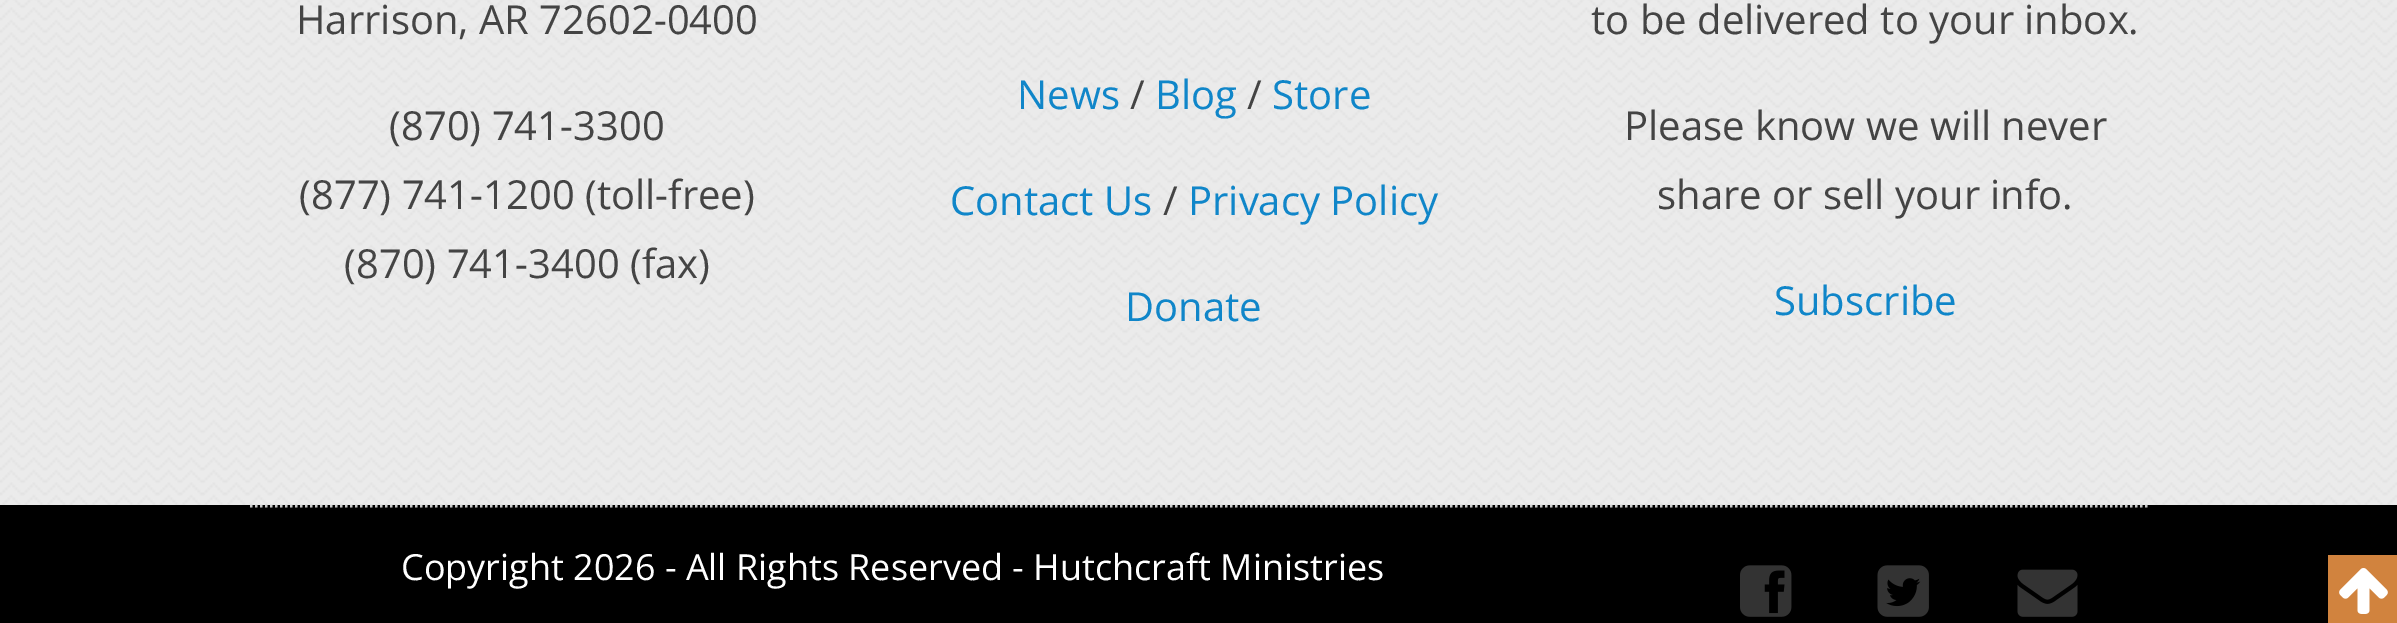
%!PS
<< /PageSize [2397 623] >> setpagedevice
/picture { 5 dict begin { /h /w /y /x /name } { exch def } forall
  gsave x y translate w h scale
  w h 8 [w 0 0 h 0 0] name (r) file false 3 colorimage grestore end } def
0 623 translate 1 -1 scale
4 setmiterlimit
0.922 setgray
0 0 2397 623 rectfill
(img1.rgb) 0 0 2397 505 picture
/OpenSans-Regular [40 0 0 -40 0 0] selectfont
0.267 setgray
296 34 moveto (Harrison, AR 72602-0400) show
389 140 moveto (\(870\) 741-3300) show
299 209 moveto (\(877\) 741-1200 \(toll-free\)) show
344 278 moveto (\(870\) 741-3400 \(fax\)) show
0.063 0.525 0.788 setrgbcolor
1017 109 moveto (News) show
0.267 setgray
1130 109 moveto (/) show
0.063 0.525 0.788 setrgbcolor
1155 109 moveto (Blog) show
0.267 setgray
1247 109 moveto (/) show
0.063 0.525 0.788 setrgbcolor
1272 109 moveto (Store) show
950 215 moveto (Contact Us) show
0.267 setgray
1163 215 moveto (/) show
0.063 0.525 0.788 setrgbcolor
1188 215 moveto (Privacy Policy) show
1125 321 moveto (Donate) show
0.267 setgray
1591 34 moveto (to be delivered to your inbox.) show
1624 140 moveto (Please know we will never) show
1657 209 moveto (share or sell your info.) show
0.063 0.525 0.788 setrgbcolor
1774 315 moveto (Subscribe) show
0 setgray
0 505 2397 118 rectfill
0.792 setgray
2.5 setlinewidth
[2.5 2.5] 0 setdash
newpath 250 506 moveto 2150 506 lineto stroke
/OpenSans-Regular [36 0 0 -36 0 0] selectfont
1 setgray
401 580 moveto (Copyright 2026 - All Rights Reserved - Hutchcraft Ministries) show
(img2.rgb) 1740 565 52 52 picture
(img3.rgb) 1877 565 52 52 picture
(img4.rgb) 2017 569 61 48 picture
0.82 0.514 0.243 setrgbcolor
2328 555 69 68 rectfill
(img5.rgb) 2339 568 49 46 picture
showpage
